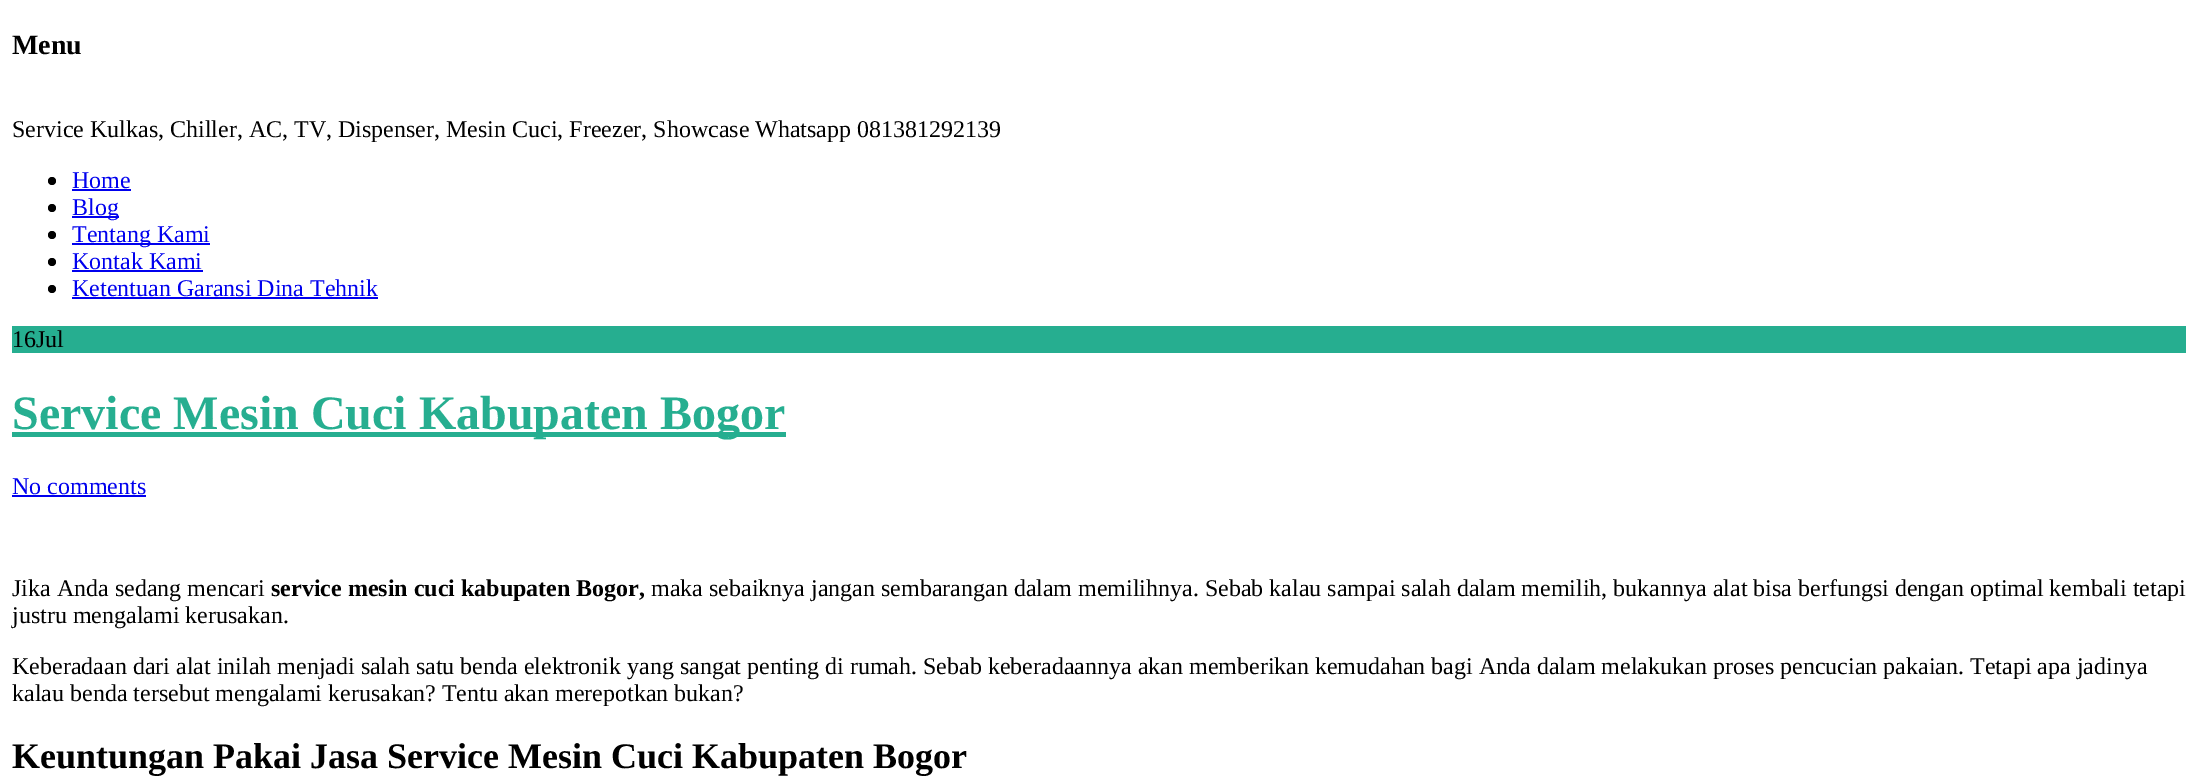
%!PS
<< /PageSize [2197 779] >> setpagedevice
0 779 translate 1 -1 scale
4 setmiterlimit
1 setgray
0 0 2197 779 rectfill
/LiberationSerif-Bold [28 0 0 -28 0 0] selectfont
0 setgray
12 54 moveto (Menu) show
/LiberationSerif-Regular [24 0 0 -24 0 0] selectfont
12 137 moveto (Service Kulkas, Chiller, AC, TV, Dispenser, Mesin Cuci, Freezer, Showcase Whatsapp 081381292139) show
newpath 52 181 4 0 360 arc closepath fill
0 0 0.933 setrgbcolor
72 188 moveto (Home) show
72 189 59 2 rectfill
0 setgray
newpath 52 208 4 0 360 arc closepath fill
0 0 0.933 setrgbcolor
72 216 47 2 rectfill
72 215 moveto (Blog) show
0 setgray
newpath 52 235 4 0 360 arc closepath fill
0 0 0.933 setrgbcolor
72 243 138 2 rectfill
72 242 moveto (Tentang Kami) show
0 setgray
newpath 52 262 4 0 360 arc closepath fill
0 0 0.933 setrgbcolor
72 269 moveto (Kontak Kami) show
72 270 131 2 rectfill
0 setgray
newpath 52 289 4 0 360 arc closepath fill
0 0 0.933 setrgbcolor
72 296 moveto (Ketentuan Garansi Dina Tehnik) show
72 297 306 2 rectfill
0.149 0.682 0.565 setrgbcolor
12 326 2174 27 rectfill
0 setgray
12 347 moveto (16Jul) show
0.149 0.682 0.565 setrgbcolor
12 432 774 5 rectfill
/LiberationSerif-Bold [48 0 0 -48 0 0] selectfont
12 429 moveto (Service Mesin Cuci Kabupaten Bogor) show
/LiberationSerif-Regular [24 0 0 -24 0 0] selectfont
0 0 0.933 setrgbcolor
12 494 moveto (No comments) show
12 495 134 2 rectfill
0 setgray
12 596 moveto (Jika Anda sedang mencari) show
/LiberationSerif-Bold [24 0 0 -24 0 0] selectfont
271 596 moveto (service mesin cuci kabupaten Bogor,) show
/LiberationSerif-Regular [24 0 0 -24 0 0] selectfont
651 596 moveto (maka sebaiknya jangan sembarangan dalam memilihnya. Sebab kalau sampai salah dalam memilih, bukannya alat bisa berfungsi dengan optimal kembali tetapi) show
12 623 moveto (justru mengalami kerusakan.) show
12 674 moveto (Keberadaan dari alat inilah menjadi salah satu benda elektronik yang sangat penting di rumah. Sebab keberadaannya akan memberikan kemudahan bagi Anda dalam melakukan proses pencucian pakaian. Tetapi apa jadinya) show
12 701 moveto (kalau benda tersebut mengalami kerusakan? Tentu akan merepotkan bukan?) show
/LiberationSerif-Bold [36 0 0 -36 0 0] selectfont
12 768 moveto (Keuntungan Pakai Jasa Service Mesin Cuci Kabupaten Bogor) show
showpage
